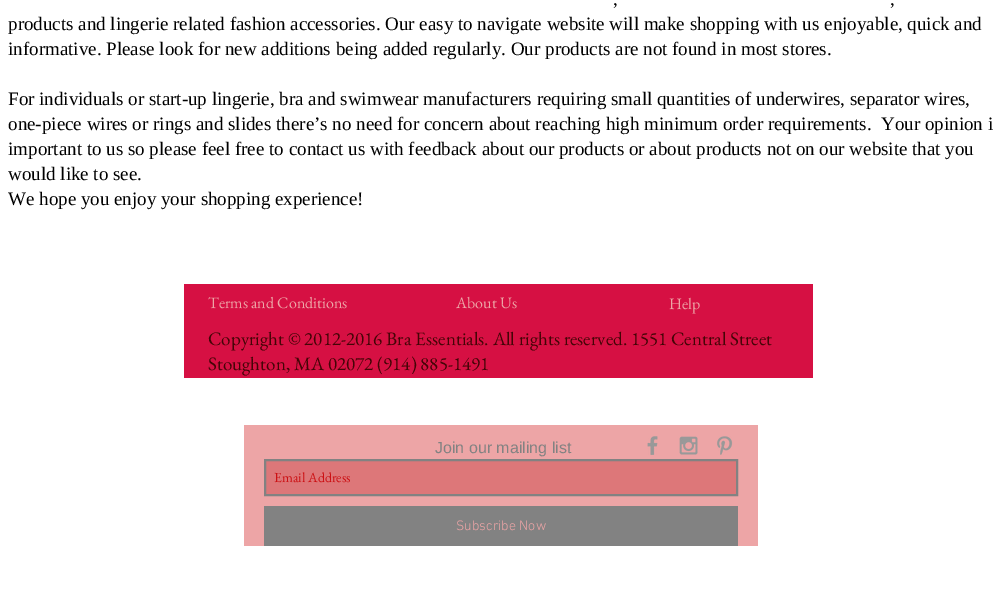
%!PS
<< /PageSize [995 609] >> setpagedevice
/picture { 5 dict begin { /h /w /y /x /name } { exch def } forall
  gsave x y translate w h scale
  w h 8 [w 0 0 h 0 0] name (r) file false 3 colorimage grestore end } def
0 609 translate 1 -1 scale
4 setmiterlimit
1 setgray
0 0 995 609 rectfill
/LiberationSerif-Regular [19 0 0 -19 0 0] selectfont
0 setgray
613 5 moveto (,) show
890 5 moveto (,) show
8 30 moveto (products and lingerie related fashion accessories. Our easy to navigate website will make shopping with us enjoyable, quick and) show
8 55 moveto (informative. Please look for new additions being added regularly. Our products are not found in most stores.) show
8 105 moveto (For individuals or start-up lingerie, bra and swimwear manufacturers requiring small quantities of underwires, separator wires,) show
8 130 moveto (one-piece wires or rings and slides there’s no need for concern about reaching high minimum order requirements.  Your opinion i) show
8 155 moveto (important to us so please feel free to contact us with feedback about our products or about products not on our website that you) show
8 180 moveto (would like to see.) show
8 205 moveto (We hope you enjoy your shopping experience!) show
0.839 0.063 0.263 setrgbcolor
184 284 629 94 rectfill
/EBGaramond-Regular [16 0 0 -16 0 0] selectfont
0.929 0.647 0.651 setrgbcolor
208 308 moveto (Terms and Conditions) show
456 308 moveto (About Us) show
669 309 moveto (Help) show
/EBGaramond-Regular [19 0 0 -19 0 0] selectfont
0.267 0.02 0.024 setrgbcolor
208 345 moveto (Copyright © 2012-2016 Bra Essentials. All rights reserved. 1551 Central Street) show
208 370 moveto (Stoughton, MA 02072 \(914\) 885-1491) show
0.929 0.647 0.651 setrgbcolor
244 425 514 121 rectfill
/LiberationSans-Regular [16 0 0 -16 0 0] selectfont
0.51 setgray
435 453 moveto (Join our mailing list) show
0.867 0.467 0.475 setrgbcolor
newpath 265 460 moveto 737 460 lineto 737 495 lineto 265 495 lineto closepath gsave fill grestore
0.51 setgray
2 setlinewidth
stroke
/EBGaramond-Regular [14 0 0 -14 0 0] selectfont
0.8 0.063 0.075 setrgbcolor
274 482 moveto (Email Address) show
0.51 setgray
264 506 474 40 rectfill
/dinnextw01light-Light [14 0 0 -14 0 0] selectfont
0.929 0.647 0.651 setrgbcolor
456 530 moveto (Subscribe Now) show
(img1.rgb) 647 436 11 19 picture
(img2.rgb) 679 436 19 19 picture
(img3.rgb) 717 436 16 19 picture
showpage
